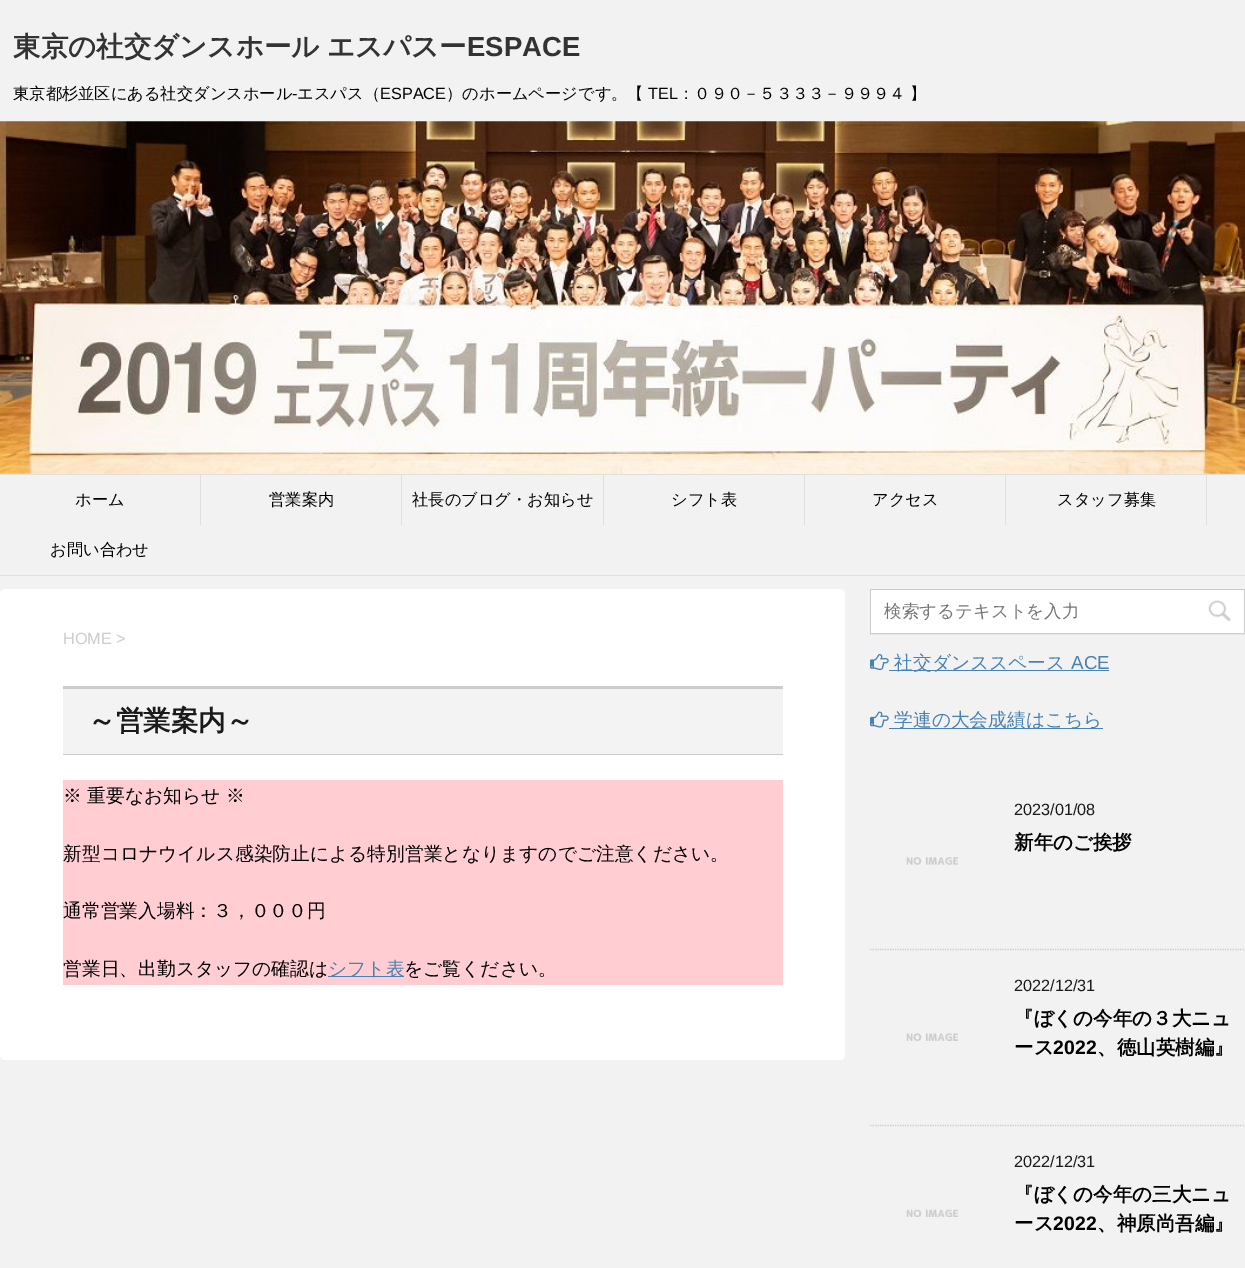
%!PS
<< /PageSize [1245 1268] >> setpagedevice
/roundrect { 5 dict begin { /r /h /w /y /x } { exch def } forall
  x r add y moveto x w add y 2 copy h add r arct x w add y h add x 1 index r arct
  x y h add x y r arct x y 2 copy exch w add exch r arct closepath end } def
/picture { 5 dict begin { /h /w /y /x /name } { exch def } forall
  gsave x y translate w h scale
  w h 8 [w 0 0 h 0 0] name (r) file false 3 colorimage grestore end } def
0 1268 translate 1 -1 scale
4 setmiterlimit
0.949 setgray
0 0 1245 1268 rectfill
/WenQuanYiZenHei-Bold [27.5 0 0 -27.5 0 0] selectfont
0.2 setgray
13 56 moveto -1 0 32 (東京の社交ダンスホール エスパスー) widthshow
/LiberationSans-Bold [27.5 0 0 -27.5 0 0] selectfont
467 56 moveto (ESPACE) show
/WenQuanYiZenHei-Medium [16.25 0 0 -16.25 0 0] selectfont
0 setgray
13 99 moveto (東京都杉並区にある社交ダンスホール) show
/LiberationSans-Regular [16.25 0 0 -16.25 0 0] selectfont
292 99 moveto (-) show
/WenQuanYiZenHei-Medium [16.25 0 0 -16.25 0 0] selectfont
297 99 moveto (エスパス（) show
/LiberationSans-Regular [16.25 0 0 -16.25 0 0] selectfont
380 99 moveto (ESPACE) show
/WenQuanYiZenHei-Medium [16.25 0 0 -16.25 0 0] selectfont
446 99 moveto (）のホームページです。【) show
/LiberationSans-Regular [16.25 0 0 -16.25 0 0] selectfont
648 99 moveto (TEL) show
/WenQuanYiZenHei-Medium [16.25 0 0 -16.25 0 0] selectfont
678 99 moveto (：０９０－５３３３－９９９４ 】) show
(img1.rgb) 0 121 1245 353 picture
0.878 0.871 0.871 setrgbcolor
0 474 1245 1 rectfill
0 575 1245 1 rectfill
200 475 1 50 rectfill
0 setgray
75 505 moveto (ホーム) show
0.878 0.871 0.871 setrgbcolor
401 475 1 50 rectfill
0 setgray
269 505 moveto (営業案内) show
0.878 0.871 0.871 setrgbcolor
603 475 1 50 rectfill
0 setgray
412 505 moveto (社長のブログ・お知らせ) show
0.878 0.871 0.871 setrgbcolor
804 475 1 50 rectfill
0 setgray
671 505 moveto (シフト表) show
0.878 0.871 0.871 setrgbcolor
1005 475 1 50 rectfill
0 setgray
872 505 moveto (アクセス) show
0.878 0.871 0.871 setrgbcolor
1206 475 1 50 rectfill
0 setgray
1057 505 moveto (スタッフ募集) show
50 555 moveto (お問い合わせ) show
1 setgray
0 589 845 471 5 roundrect fill
/LiberationSans-Regular [16.25 0 0 -16.25 0 0] selectfont
0.8 setgray
63 644 moveto (HOME >) show
0.953 setgray
63 689 720 65 rectfill
0.8 setgray
63 686 720 3 rectfill
63 754 720 1 rectfill
/WenQuanYiZenHei-Bold [27.5 0 0 -27.5 0 0] selectfont
0.102 setgray
88 730 moveto (～営業案内～) show
1 0.804 0.824 setrgbcolor
63 780 720 205 rectfill
/WenQuanYiZenHei-Medium [18.75 0 0 -18.75 0 0] selectfont
0 setgray
63 802 moveto (※ 重要なお知らせ ※) show
63 860 moveto (新型コロナウイルス感染防止による特別営業となりますのでご注意ください。) show
63 917 moveto (通常営業入場料：３，０００円) show
63 975 moveto (営業日、出勤スタッフの確認は) show
0.275 0.51 0.706 setrgbcolor
328 976 76 1 rectfill
328 975 moveto (シフト表) show
0 setgray
404 975 moveto (をご覧ください。) show
0.8 setgray
870.5 589.5 374 44 rectstroke
1 setgray
871 590 373 43 rectfill
/WenQuanYiZenHei-Medium [17.5 0 0 -17.5 0 0] selectfont
0.459 setgray
884 617 moveto (検索するテキストを入力) show
(img2.rgb) 1208 600 23 22 picture
(img3.rgb) 870 654 19 17 picture
0.275 0.51 0.706 setrgbcolor
889 670 220 1 rectfill
/WenQuanYiZenHei-Medium [18.75 0 0 -18.75 0 0] selectfont
894 669 moveto (社交ダンススペース) show
/LiberationSans-Regular [18.75 0 0 -18.75 0 0] selectfont
1071 669 moveto (ACE) show
(img4.rgb) 870 711 19 17 picture
889 728 214 1 rectfill
/WenQuanYiZenHei-Medium [18.75 0 0 -18.75 0 0] selectfont
894 726 moveto (学連の大会成績はこちら) show
0.8 setgray
1.2 setlinewidth
[1.25 1.25] 0 setdash
newpath 870 949.5 moveto 1245 949.5 lineto stroke
/LiberationSans-Regular [16.25 0 0 -16.25 0 0] selectfont
0.102 setgray
1014 815 moveto (2023/01/08) show
/WenQuanYiZenHei-Bold [19.5 0 0 -19.5 0 0] selectfont
0 setgray
1014 849 moveto (新年のご挨拶) show
(img5.rgb) 906 857 53 8 picture
0.8 setgray
newpath 870 1125.5 moveto 1245 1125.5 lineto stroke
(img6.rgb) 906 1033 53 8 picture
/LiberationSans-Regular [16.25 0 0 -16.25 0 0] selectfont
0.102 setgray
1014 991 moveto (2022/12/31) show
/WenQuanYiZenHei-Bold [19.5 0 0 -19.5 0 0] selectfont
0 setgray
1014 1025 moveto (『ぼくの今年の３大ニュ) show
1014 1054 moveto (ース) show
/LiberationSans-Bold [19.5 0 0 -19.5 0 0] selectfont
1053 1054 moveto (2022) show
/WenQuanYiZenHei-Bold [19.5 0 0 -19.5 0 0] selectfont
1097 1054 moveto (、徳山英樹編』) show
(img7.rgb) 906 1209 53 8 picture
/LiberationSans-Regular [16.25 0 0 -16.25 0 0] selectfont
0.102 setgray
1014 1167 moveto (2022/12/31) show
/WenQuanYiZenHei-Bold [19.5 0 0 -19.5 0 0] selectfont
0 setgray
1014 1201 moveto (『ぼくの今年の三大ニュ) show
1014 1230 moveto (ース) show
/LiberationSans-Bold [19.5 0 0 -19.5 0 0] selectfont
1053 1230 moveto (2022) show
/WenQuanYiZenHei-Bold [19.5 0 0 -19.5 0 0] selectfont
1097 1230 moveto (、神原尚吾編』) show
showpage
